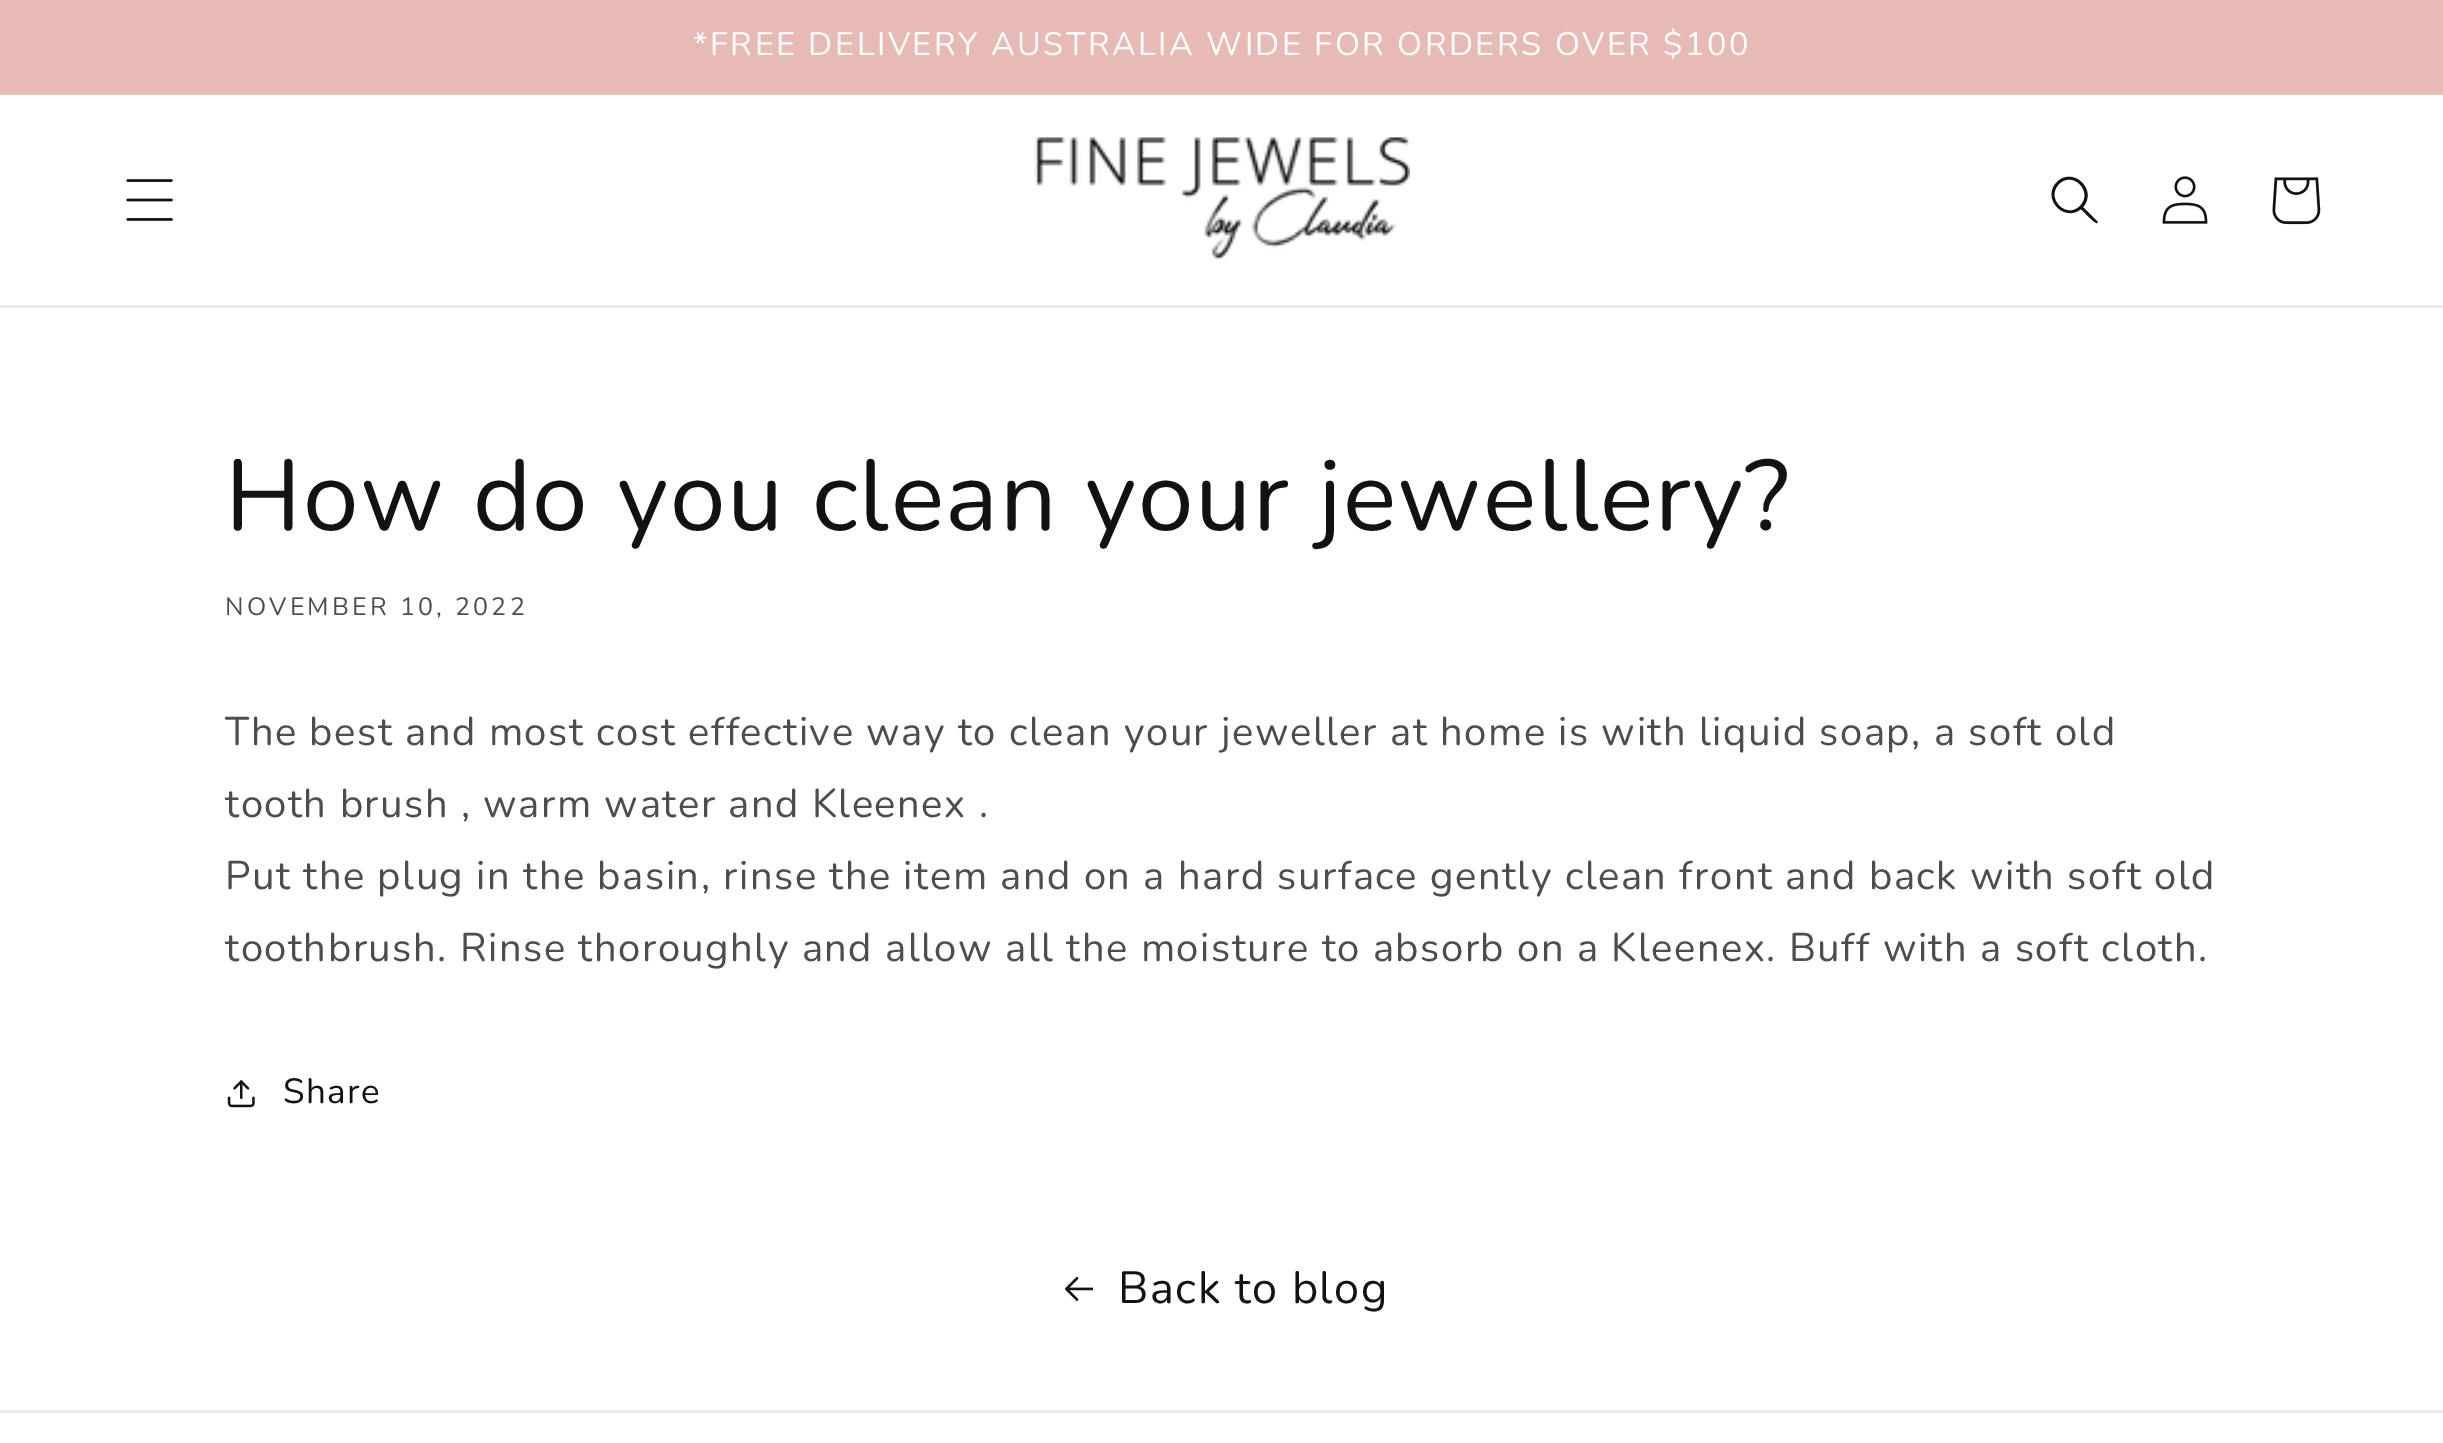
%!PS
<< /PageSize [2443 1443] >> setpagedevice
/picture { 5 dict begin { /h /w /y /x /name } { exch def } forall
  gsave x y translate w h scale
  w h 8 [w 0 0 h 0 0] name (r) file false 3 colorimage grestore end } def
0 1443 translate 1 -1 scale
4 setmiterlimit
1 setgray
0 0 2443 1443 rectfill
0.906 0.729 0.71 setrgbcolor
0 0 2443 93 rectfill
0.914 0.753 0.733 setrgbcolor
0 93 2443 2 rectfill
/Nunito-Regular [32.5 0 0 -32.5 0 0] selectfont
1 setgray
693 55 moveto 2.5 0 (*FREE DELIVERY AUSTRALIA WIDE FOR ORDERS OVER $100) ashow
0.925 setgray
0 305 2443 3 rectfill
(img1.rgb) 126 179 47 42 picture
(img2.rgb) 1035 137 375 123 picture
0.071 setgray
newpath 2080 206 moveto 2066 220 2045 198 2059 184 curveto 2073 170 2094 192 2080 206 curveto closepath 2081 209 moveto 2064 223 2041 198 2057 182 curveto 2073 166 2098 190 2083 207 curveto 2098 222 lineto 2097 223 lineto 2095 224 2083 211 2081 209 curveto closepath eofill
(img3.rgb) 2162 176 46 48 picture
(img4.rgb) 2272 177 49 48 picture
/Nunito-Regular [100 0 0 -100 0 0] selectfont
225 530 moveto 1.5 0 (How do you clean your jewellery?) ashow
/Nunito-Regular [25 0 0 -25 0 0] selectfont
0.302 setgray
225 615 moveto 3.25 0 (NOVEMBER 10, 2022) ashow
/Nunito-Regular [40 0 0 -40 0 0] selectfont
225 745 moveto 1.5 0 (The best and most cost effective way to clean your jeweller at home is with liquid soap, a soft old) ashow
225 817 moveto 1.5 0 (tooth brush , warm water and Kleenex .) ashow
225 889 moveto 1.5 0 (Put the plug in the basin, rinse the item and on a hard surface gently clean front and back with soft old) ashow
225 961 moveto 1.5 0 (toothbrush. Rinse thoroughly and allow all the moisture to absorb on a Kleenex. Buff with a soft cloth.) ashow
(img5.rgb) 227 1080 28 28 picture
/Nunito-Regular [35 0 0 -35 0 0] selectfont
0.071 setgray
283 1103 moveto 1.5 0 (Share) ashow
(img6.rgb) 1065 1276 28 25 picture
/Nunito-Regular [45 0 0 -45 0 0] selectfont
1118 1303 moveto 1.5 0 (Back to blog) ashow
0.925 setgray
0 1410 2443 3 rectfill
showpage
